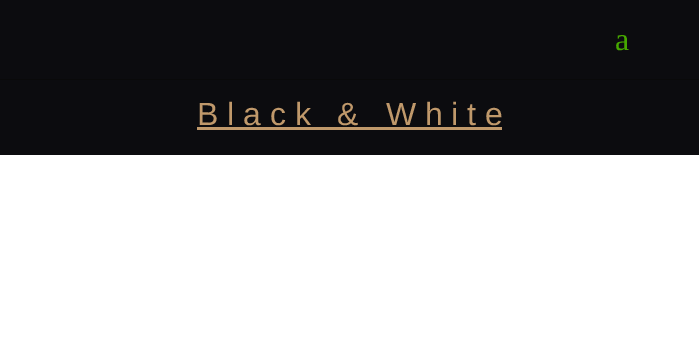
%!PS
<< /PageSize [699 353] >> setpagedevice
0 353 translate 1 -1 scale
4 setmiterlimit
0.039 setgray
0 0 699 353 rectfill
0.047 0.047 0.059 setrgbcolor
0 0 699 79 rectfill
/LiberationSerif-Regular [32 0 0 -32 0 0] selectfont
0.275 0.659 0 setrgbcolor
615 50 moveto (a) show
0.047 0.047 0.059 setrgbcolor
0 80 699 75 rectfill
/LiberationSans-Regular [32 0 0 -32 0 0] selectfont
0.753 0.6 0.42 setrgbcolor
197 125 moveto (B l a c k   &   W h i t e) show
197 127 305 3 rectfill
1 setgray
0 155 699 198 rectfill
showpage
